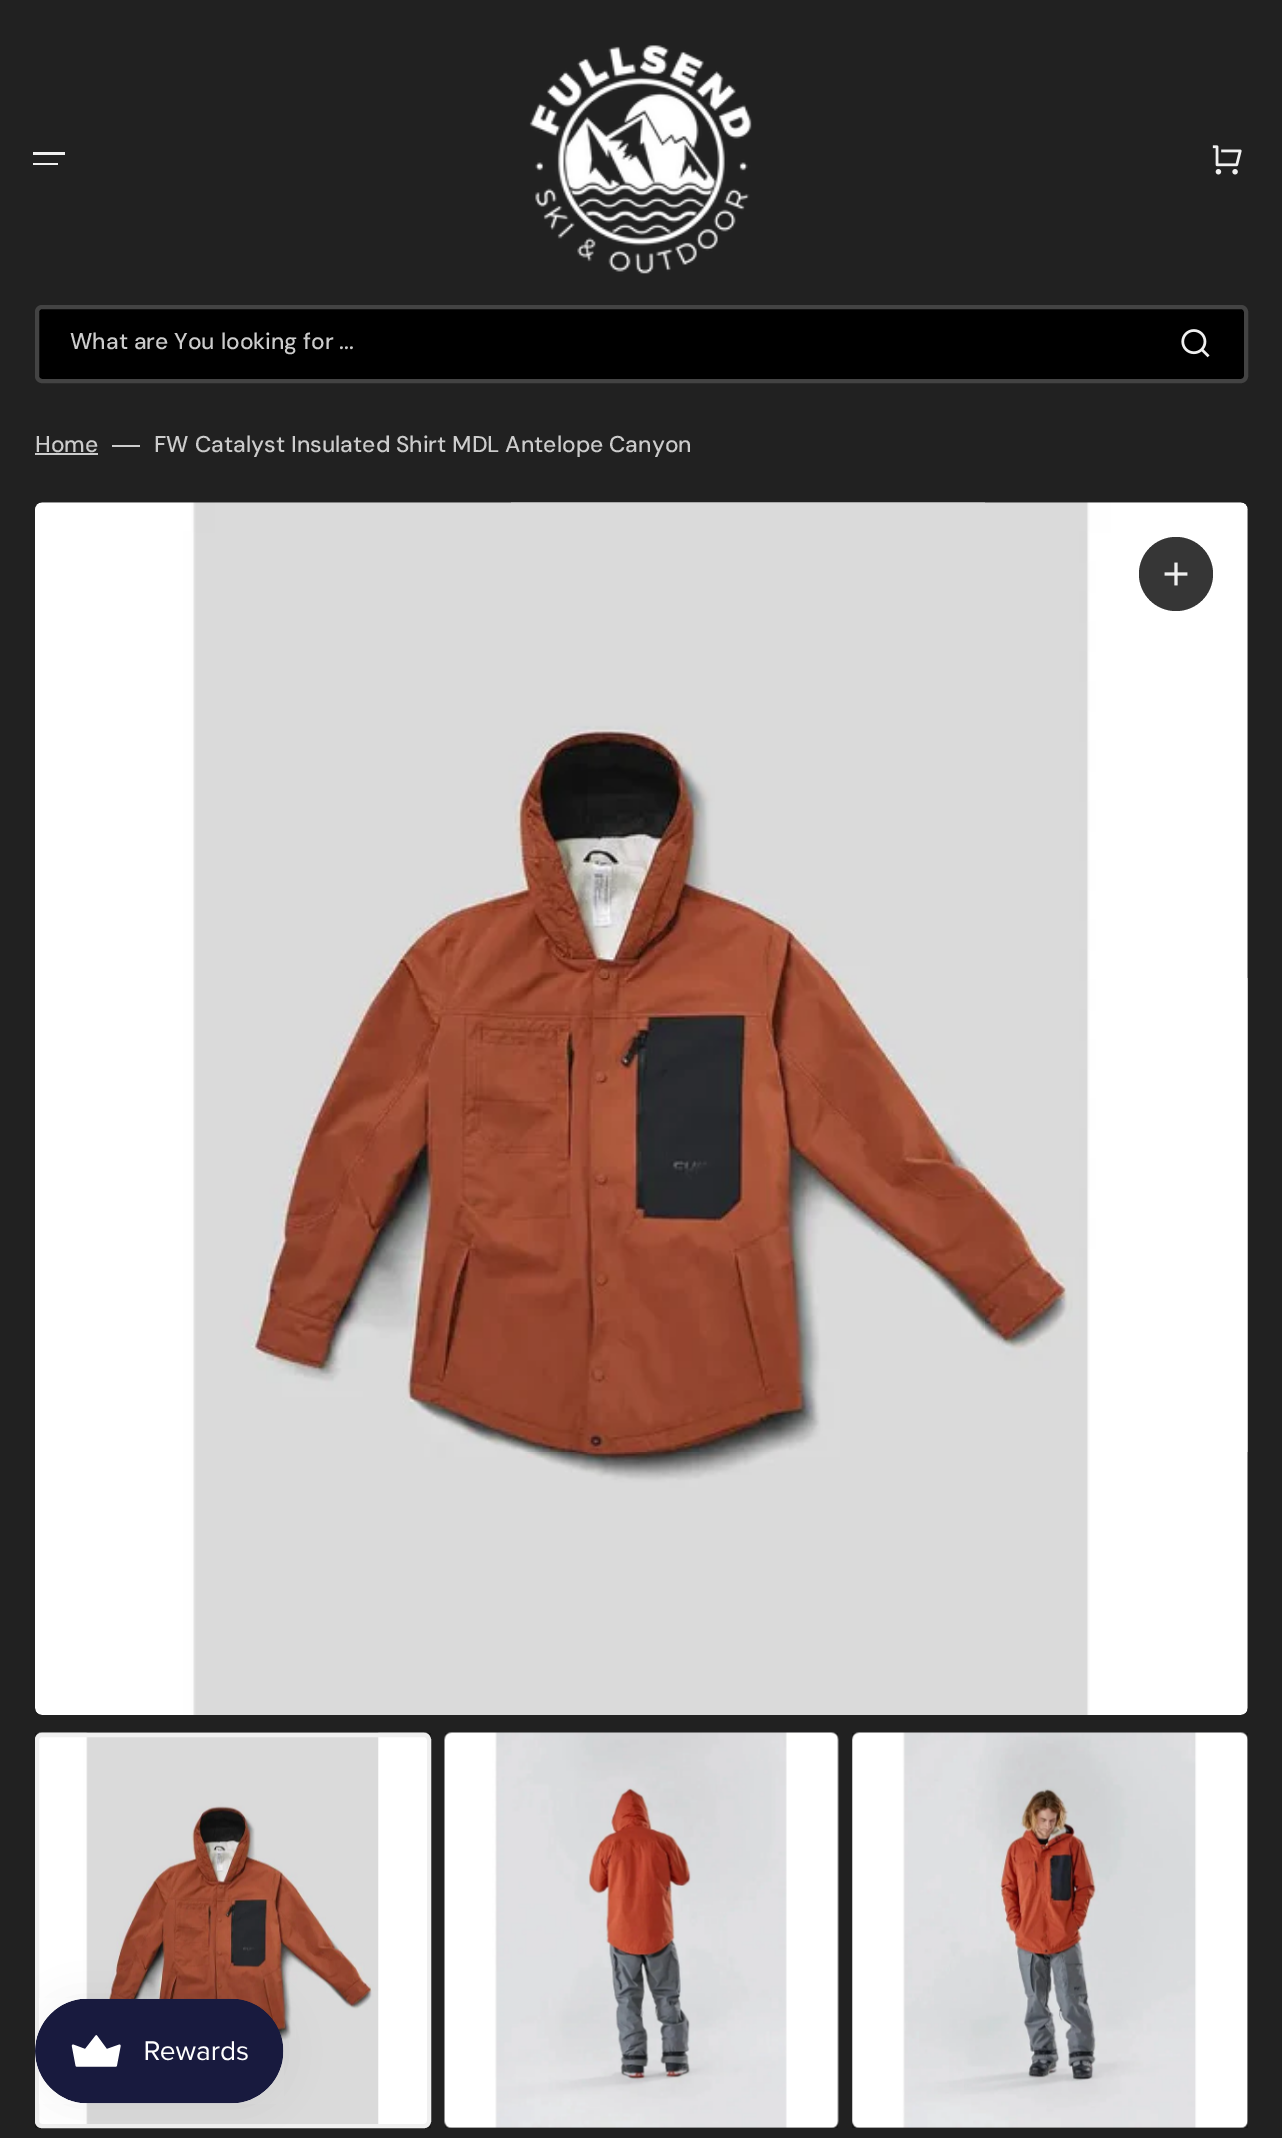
%!PS
<< /PageSize [1282 2138] /PageUsesTransparency true >> setpagedevice
/alpha { dup .setfillconstantalpha .setstrokeconstantalpha } def
/roundrect { 5 dict begin { /r /h /w /y /x } { exch def } forall
  x r add y moveto x w add y 2 copy h add r arct x w add y h add x 1 index r arct
  x y h add x y r arct x y 2 copy exch w add exch r arct closepath end } def
/shadow { 12 dict begin { /a /b /q /h /w /y /x } { exch def } forall gsave /was 0 def
  9 -2 -9 { dup b mul 4 div /e exch def 1 sub .425 mul 2.718 exch exp 1 add a .99 .min exch div /now exch def
    1 1 now sub 1 was sub div sub alpha /was now def
    w h .min e 2 mul add 0 gt { x e sub y e sub w e 2 mul add h e 2 mul add
      q e add b .6 mul add w h .min 2 div e add .min 0 .max roundrect fill } if } for grestore end } def
/picture { 5 dict begin { /h /w /y /x /name } { exch def } forall
  gsave x y translate w h scale
  w h 8 [w 0 0 h 0 0] name (r) file false 3 colorimage grestore end } def
0 .pushpdf14devicefilter
0 2138 translate 1 -1 scale
4 setmiterlimit
0.129 setgray
0 0 1282 2138 rectfill
0.941 setgray
33 152 32 3 rectfill
33 163 25 2 rectfill
(img1.rgb) 529 45 223 229 picture
(img2.rgb) 1212 145 30 30 picture
0 setgray
37 307 1209 74 5 roundrect gsave fill grestore
0.263 setgray
4 setlinewidth
stroke
/DMSans-Medium [22.75 0 0 -22.75 0 0] selectfont
0.8 setgray
70 349 moveto (What are You looking for ...) show
(img3.rgb) 1181 329 29 29 picture
35 452 moveto (Home) show
35 453 63 2 rectfill
112 445 28 2 rectfill
154 452 moveto (FW Catalyst Insulated Shirt MDL Antelope Canyon) show
0.09 setgray
35 502 1213 1213 7 roundrect fill
(img4.rgb) 35 502 1213 1213 picture
0.129 setgray
newpath 1176 574 37 0 360 arc closepath fill
0.1 alpha
0.941 setgray
newpath 1176 537 moveto 1196 537 1213 554 1213 574 curveto 1213 594 1196 611 1176 611 curveto 1156 611 1139 594 1139 574 curveto 1139 554 1156 537 1176 537 curveto closepath fill
1 alpha
(img5.rgb) 1164 562 24 24 picture
0.09 setgray
35 1733 396 395 rectfill
(img6.rgb) 35 1732 396 396 picture
0.941 setgray
37 1735 392 391 5 roundrect stroke
0.09 setgray
445 1733 393 395 rectfill
(img7.rgb) 444 1732 395 396 picture
852 1733 396 395 rectfill
(img8.rgb) 852 1732 396 396 picture
0 setgray
35 1999 249 105 52.5 22 0.05 shadow
(img9.rgb) 35 1998 249 106 picture
.poppdf14devicefilter showpage
